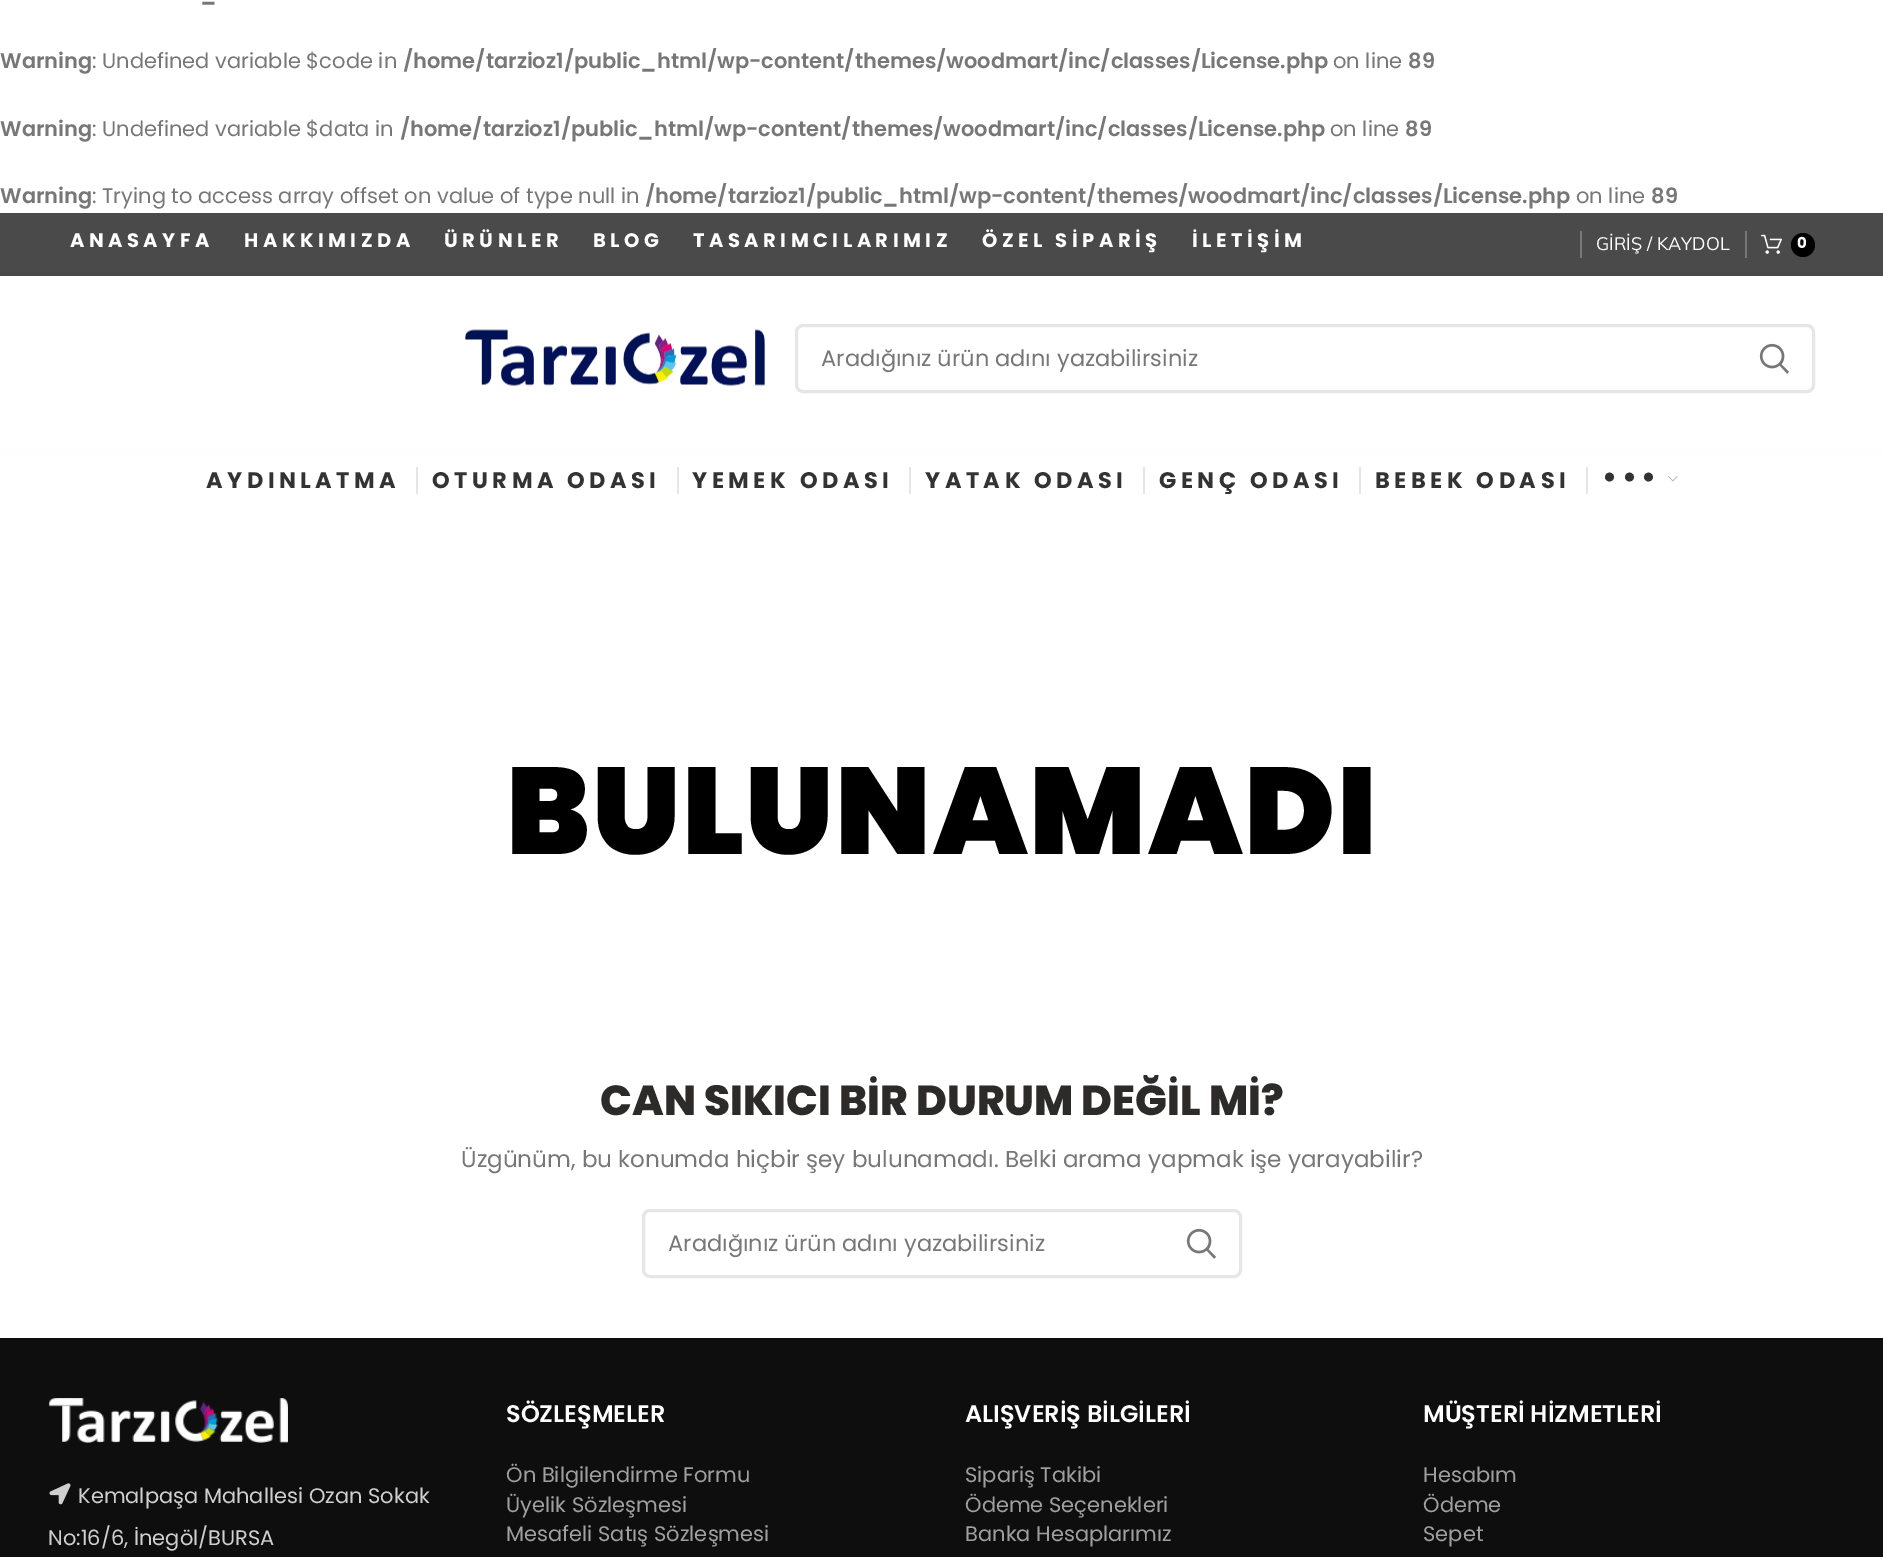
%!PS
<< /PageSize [1883 1557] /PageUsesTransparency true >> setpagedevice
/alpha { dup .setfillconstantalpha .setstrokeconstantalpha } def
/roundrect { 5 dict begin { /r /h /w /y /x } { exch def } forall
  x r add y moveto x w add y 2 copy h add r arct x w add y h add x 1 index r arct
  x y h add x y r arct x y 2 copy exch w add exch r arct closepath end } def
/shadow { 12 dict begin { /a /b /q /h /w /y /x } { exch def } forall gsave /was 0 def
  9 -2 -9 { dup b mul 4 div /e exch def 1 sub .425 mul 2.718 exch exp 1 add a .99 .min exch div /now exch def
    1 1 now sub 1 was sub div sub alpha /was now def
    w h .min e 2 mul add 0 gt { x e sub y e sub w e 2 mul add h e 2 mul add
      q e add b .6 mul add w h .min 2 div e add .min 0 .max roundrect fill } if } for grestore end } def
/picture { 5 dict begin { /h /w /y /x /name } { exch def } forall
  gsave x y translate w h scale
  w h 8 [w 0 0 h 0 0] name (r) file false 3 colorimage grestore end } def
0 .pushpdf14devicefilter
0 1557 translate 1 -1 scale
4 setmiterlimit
1 setgray
0 0 1883 1557 rectfill
/Poppins-SemiBold [21 0 0 -21 0 0] selectfont
0.467 setgray
200 1 moveto (_) show
0 68 moveto (Warning) show
/Poppins-Regular [21 0 0 -21 0 0] selectfont
92 68 moveto (: Undefined variable $code in) show
/Poppins-SemiBold [21 0 0 -21 0 0] selectfont
403 68 moveto (/home/tarzioz1/public_html/wp-content/themes/woodmart/inc/classes/License.php) show
/Poppins-Regular [21 0 0 -21 0 0] selectfont
1333 68 moveto (on line) show
/Poppins-SemiBold [21 0 0 -21 0 0] selectfont
1408 68 moveto (89) show
0 136 moveto (Warning) show
/Poppins-Regular [21 0 0 -21 0 0] selectfont
92 136 moveto (: Undefined variable $data in) show
/Poppins-SemiBold [21 0 0 -21 0 0] selectfont
400 136 moveto (/home/tarzioz1/public_html/wp-content/themes/woodmart/inc/classes/License.php) show
/Poppins-Regular [21 0 0 -21 0 0] selectfont
1330 136 moveto (on line) show
/Poppins-SemiBold [21 0 0 -21 0 0] selectfont
1405 136 moveto (89) show
0 203 moveto (Warning) show
/Poppins-Regular [21 0 0 -21 0 0] selectfont
92 203 moveto (: Trying to access array offset on value of type null in) show
/Poppins-SemiBold [21 0 0 -21 0 0] selectfont
645 203 moveto (/home/tarzioz1/public_html/wp-content/themes/woodmart/inc/classes/License.php) show
/Poppins-Regular [21 0 0 -21 0 0] selectfont
1576 203 moveto (on line) show
/Poppins-SemiBold [21 0 0 -21 0 0] selectfont
1651 203 moveto (89) show
0.29 setgray
0 213 1883 63 rectfill
/Poppins-Bold [19.5 0 0 -19.5 0 0] selectfont
1 setgray
70 247 moveto 4.5 0 (ANASAYFA) ashow
244 247 moveto 4.5 0 (HAKKIMIZDA) ashow
444 247 moveto 4.5 0 (ÜRÜNLER) ashow
593 247 moveto 4.5 0 (BLOG) ashow
693 247 moveto 4.5 0 (TASARIMCILARIMIZ) ashow
982 247 moveto 4.5 0 (ÖZEL SİPARİŞ) ashow
1192 247 moveto 4.5 0 (İLETİŞİM) ashow
0.467 setgray
1580 231 2 27 rectfill
/Muli-Regular [18 0 0 -18 0 0] selectfont
1 setgray
1596 250 moveto (GİRİŞ / KAYDOL) show
0.467 setgray
1745 231 2 27 rectfill
(img1.rgb) 1761 234 21 20 picture
0 setgray
newpath 1803 245 12 0 360 arc closepath fill
/Poppins-Bold [15 0 0 -15 0 0] selectfont
1 setgray
1797 248 moveto (0) show
0 setgray
0 278 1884 165 0 6 0.1 shadow
1 setgray
0 276 1883 175 rectfill
(img2.rgb) 465 329 300 57 picture
0.902 setgray
3 setlinewidth
796.5 325.5 1017 66 6.5 roundrect stroke
/Poppins-Regular [22.5 0 0 -22.5 0 0] selectfont
0.467 setgray
821 366 moveto (Aradığınız ürün adını yazabilirsiniz) show
(img3.rgb) 1759 343 30 31 picture
/Poppins-Bold [22.5 0 0 -22.5 0 0] selectfont
0.2 setgray
206 488 moveto 4.5 0 (AYDINLATMA) ashow
0.902 setgray
416 467 2 27 rectfill
0.2 setgray
432 488 moveto 4.5 0 (OTURMA ODASI) ashow
0.902 setgray
677 467 2 27 rectfill
0.2 setgray
692 488 moveto 4.5 0 (YEMEK ODASI) ashow
0.902 setgray
909 467 2 27 rectfill
0.2 setgray
925 488 moveto 4.5 0 (YATAK ODASI) ashow
0.902 setgray
1143 467 2 27 rectfill
0.2 setgray
1159 488 moveto 4.5 0 (GENÇ ODASI) ashow
0.902 setgray
1359 467 2 27 rectfill
0.2 setgray
1375 488 moveto 4.5 0 (BEBEK ODASI) ashow
0.902 setgray
1586 467 2 27 rectfill
/Poppins-Bold [30 0 0 -30 0 0] selectfont
0.2 setgray
1602 487 moveto 4.5 0 (•••) ashow
(img4.rgb) 1668 476 10 6 picture
/Poppins-Black [123 0 0 -123 0 0] selectfont
0 setgray
506 854 moveto 1.5 0 (BULUNAMADI) ashow
/Poppins-ExtraBold [42 0 0 -42 0 0] selectfont
0.176 0.165 0.165 setrgbcolor
600 1115 moveto (CAN SIKICI BİR DURUM DEĞİL Mİ?) show
/Poppins-Regular [23.1 0 0 -23.1 0 0] selectfont
0.467 setgray
461 1167 moveto (Üzgünüm, bu konumda hiçbir şey bulunamadı. Belki arama yapmak işe yarayabilir?) show
0.902 setgray
643.5 1210.5 597 66 6.5 roundrect stroke
/Poppins-Regular [22.5 0 0 -22.5 0 0] selectfont
0.467 setgray
668 1251 moveto (Aradığınız ürün adını yazabilirsiniz) show
(img3.rgb) 1186 1228 30 31 picture
0.055 setgray
0 1338 1883 219 rectfill
(img5.rgb) 48 1398 240 45 picture
(img6.rgb) 49 1483 22 22 picture
/Poppins-Regular [21 0 0 -21 0 0] selectfont
0.812 setgray
78 1503 moveto (Kemalpaşa Mahallesi Ozan Sokak) show
48 1545 moveto (No:16/6, İnegöl/BURSA) show
/Poppins-SemiBold [24 0 0 -24 0 0] selectfont
1 setgray
506 1422 moveto (SÖZLEŞMELER) show
/Poppins-Regular [21 0 0 -21 0 0] selectfont
0.624 setgray
506 1482 moveto (Ön Bilgilendirme Formu) show
506 1512 moveto (Üyelik Sözleşmesi) show
506 1541 moveto (Mesafeli Satış Sözleşmesi) show
/Poppins-SemiBold [24 0 0 -24 0 0] selectfont
1 setgray
965 1422 moveto (ALIŞVERİŞ BİLGİLERİ) show
/Poppins-Regular [21 0 0 -21 0 0] selectfont
0.624 setgray
965 1482 moveto (Sipariş Takibi) show
965 1512 moveto (Ödeme Seçenekleri) show
965 1541 moveto (Banka Hesaplarımız) show
/Poppins-SemiBold [24 0 0 -24 0 0] selectfont
1 setgray
1423 1422 moveto (MÜŞTERİ HİZMETLERİ) show
/Poppins-Regular [21 0 0 -21 0 0] selectfont
0.624 setgray
1423 1482 moveto (Hesabım) show
1423 1512 moveto (Ödeme) show
1423 1541 moveto (Sepet) show
.poppdf14devicefilter showpage
